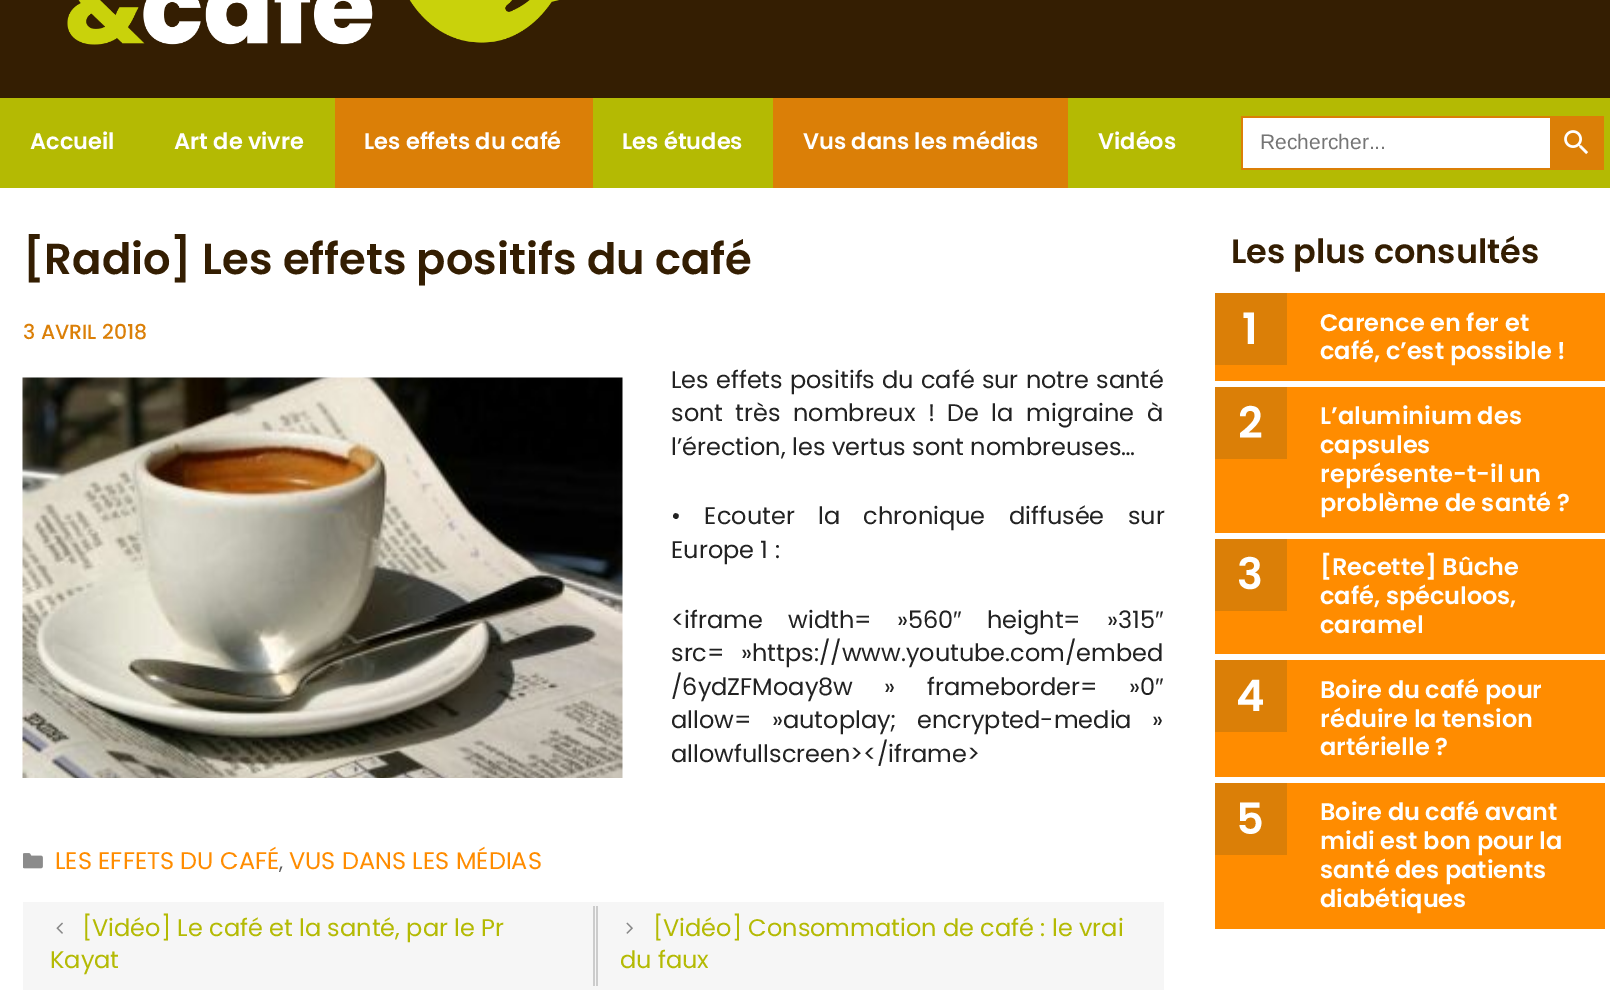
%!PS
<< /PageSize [1610 1006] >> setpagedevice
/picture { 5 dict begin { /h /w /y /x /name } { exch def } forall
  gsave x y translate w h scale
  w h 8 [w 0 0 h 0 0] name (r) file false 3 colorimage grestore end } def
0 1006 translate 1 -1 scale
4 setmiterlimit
1 setgray
0 0 1610 1006 rectfill
0.204 0.118 0.008 setrgbcolor
0 0 1610 98 rectfill
(img1.rgb) 67 0 492 45 picture
0.706 0.729 0.012 setrgbcolor
0 98 1610 90 rectfill
/Poppins-SemiBold [22.5 0 0 -22.5 0 0] selectfont
1 setgray
30 149 moveto (Accueil) show
174 149 moveto (Art de vivre) show
0.859 0.498 0.027 setrgbcolor
335 98 258 90 rectfill
1 setgray
364 149 moveto (Les effets du café) show
622 149 moveto (Les études) show
0.859 0.498 0.027 setrgbcolor
773 98 295 90 rectfill
1 setgray
803 149 moveto (Vus dans les médias) show
1098 149 moveto (Vidéos) show
1243 118 307 50 rectfill
0.859 0.498 0.027 setrgbcolor
1241 116 309 2 rectfill
1241 168 309 2 rectfill
1241 116 2 54 rectfill
/LiberationSans-Regular [21 0 0 -21 0 0] selectfont
0.459 setgray
1260 149 moveto (Rechercher...) show
0.859 0.498 0.027 setrgbcolor
1550 116 54 54 rectfill
(img2.rgb) 1564 130 25 25 picture
/Poppins-SemiBold [43.25 0 0 -43.25 0 0] selectfont
0.204 0.118 0.008 setrgbcolor
23 274 moveto ([Radio] Les effets positifs du café) show
/Poppins-Medium [20.5 0 0 -20.5 0 0] selectfont
0.859 0.498 0.027 setrgbcolor
23 339 moveto (3 AVRIL 2018) show
(img3.rgb) 22 377 601 401 picture
/Poppins-Regular [24 0 0 -24 0 0] selectfont
0.133 setgray
671 388 moveto 0.75 0 32 (Les effets positifs du café sur notre santé) widthshow
671 421 moveto 6 0 32 (sont très nombreux ! De la migraine à) widthshow
671 455 moveto (l’érection, les vertus sont nombreuses…) show
671 524 moveto 17 0 32 (• Ecouter la chronique diffusée sur) widthshow
671 558 moveto (Europe 1 :) show
671 628 moveto 19 0 32 (<iframe width= »560) widthshow
/LiberationSans-Regular [24 0 0 -24 0 0] selectfont
953 628 moveto (″) show
/Poppins-Regular [24 0 0 -24 0 0] selectfont
987 628 moveto (height=) show
1107 628 moveto (»315) show
/LiberationSans-Regular [24 0 0 -24 0 0] selectfont
1155 628 moveto (″) show
/Poppins-Regular [24 0 0 -24 0 0] selectfont
671 661 moveto (src=) show
741 661 moveto (»https://www.youtube.com/embed) show
671 695 moveto 25 0 32 (/6ydZFMoay8w » frameborder= »0) widthshow
/LiberationSans-Regular [24 0 0 -24 0 0] selectfont
1155 695 moveto (″) show
/Poppins-Regular [24 0 0 -24 0 0] selectfont
671 728 moveto 14 0 32 (allow= »autoplay; encrypted-media ») widthshow
671 762 moveto (allowfullscreen></iframe>) show
(img4.rgb) 23 853 20 16 picture
1 0.549 0 setrgbcolor
55 869 moveto (LES EFFETS DU CAFÉ) show
/Poppins-Regular [20.5 0 0 -20.5 0 0] selectfont
0.349 setgray
279 869 moveto (,) show
/Poppins-Regular [24 0 0 -24 0 0] selectfont
1 0.549 0 setrgbcolor
289 869 moveto (VUS DANS LES MÉDIAS) show
0.965 setgray
23 902 1141 88 rectfill
(img5.rgb) 56 922 7 12 picture
0.706 0.729 0.012 setrgbcolor
82 936 moveto ([Vidéo] Le café et la santé, par le Pr) show
50 968 moveto (Kayat) show
0.8 setgray
593 906 2 80 rectfill
596 906 2 80 rectfill
(img6.rgb) 626 922 7 12 picture
0.706 0.729 0.012 setrgbcolor
653 936 moveto ([Vidéo] Consommation de café : le vrai) show
620 968 moveto (du faux) show
/Poppins-SemiBold [33.5 0 0 -33.5 0 0] selectfont
0.204 0.118 0.008 setrgbcolor
1231 263 moveto (Les plus consultés) show
1 0.549 0 setrgbcolor
1215 293 390 88 rectfill
0.859 0.498 0.027 setrgbcolor
1215 293 72 72 rectfill
/Poppins-SemiBold [43.25 0 0 -43.25 0 0] selectfont
1 setgray
1242 344 moveto (1) show
/Poppins-SemiBold [24 0 0 -24 0 0] selectfont
1320 331 moveto (Carence en fer et) show
1320 359 moveto (café, c’est possible !) show
1 0.549 0 setrgbcolor
1215 387 390 146 rectfill
0.859 0.498 0.027 setrgbcolor
1215 387 72 72 rectfill
/Poppins-SemiBold [43.25 0 0 -43.25 0 0] selectfont
1 setgray
1238 438 moveto (2) show
/Poppins-SemiBold [24 0 0 -24 0 0] selectfont
1320 424 moveto (L’aluminium des) show
1320 453 moveto (capsules) show
1320 482 moveto (représente-t-il un) show
1320 511 moveto (problème de santé ?) show
1 0.549 0 setrgbcolor
1215 539 390 115 rectfill
0.859 0.498 0.027 setrgbcolor
1215 539 72 72 rectfill
/Poppins-SemiBold [43.25 0 0 -43.25 0 0] selectfont
1 setgray
1237 589 moveto (3) show
/Poppins-SemiBold [24 0 0 -24 0 0] selectfont
1320 575 moveto ([Recette] Bûche) show
1320 604 moveto (café, spéculoos,) show
1320 633 moveto (caramel) show
1 0.549 0 setrgbcolor
1215 660 390 117 rectfill
0.859 0.498 0.027 setrgbcolor
1215 660 72 72 rectfill
/Poppins-SemiBold [43.25 0 0 -43.25 0 0] selectfont
1 setgray
1236 711 moveto (4) show
/Poppins-SemiBold [24 0 0 -24 0 0] selectfont
1320 698 moveto (Boire du café pour) show
1320 727 moveto (réduire la tension) show
1320 755 moveto (artérielle ?) show
1 0.549 0 setrgbcolor
1215 783 390 146 rectfill
0.859 0.498 0.027 setrgbcolor
1215 783 72 72 rectfill
/Poppins-SemiBold [43.25 0 0 -43.25 0 0] selectfont
1 setgray
1236 834 moveto (5) show
/Poppins-SemiBold [24 0 0 -24 0 0] selectfont
1320 820 moveto (Boire du café avant) show
1320 849 moveto (midi est bon pour la) show
1320 878 moveto (santé des patients) show
1320 907 moveto (diabétiques) show
showpage
